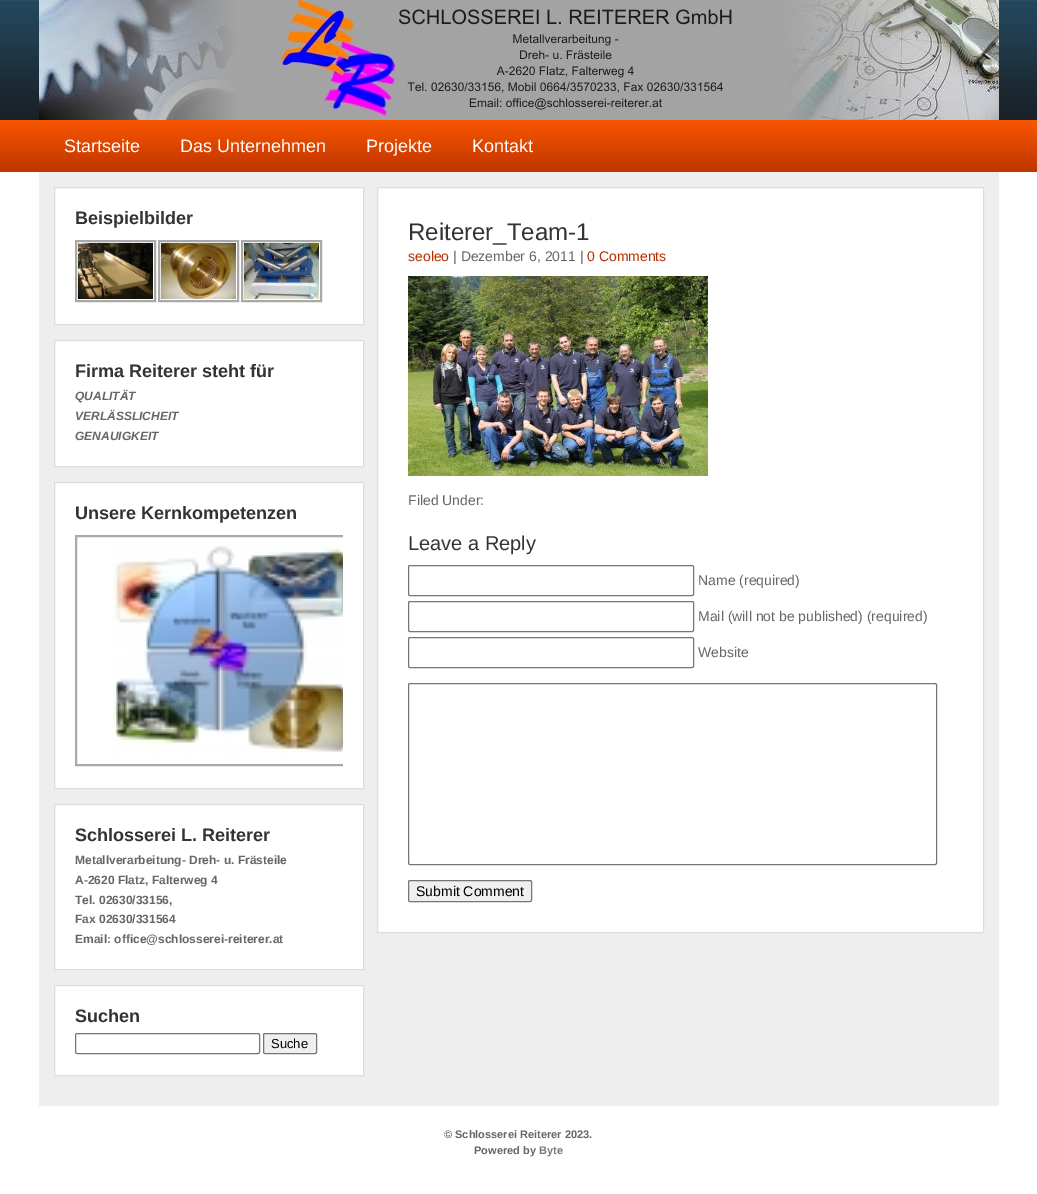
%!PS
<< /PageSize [1037 1194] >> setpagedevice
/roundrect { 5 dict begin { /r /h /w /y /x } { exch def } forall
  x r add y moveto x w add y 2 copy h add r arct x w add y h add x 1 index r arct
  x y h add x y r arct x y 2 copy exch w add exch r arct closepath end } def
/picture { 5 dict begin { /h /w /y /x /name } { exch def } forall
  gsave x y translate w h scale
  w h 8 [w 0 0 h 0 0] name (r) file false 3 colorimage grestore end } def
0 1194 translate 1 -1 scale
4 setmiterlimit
1 setgray
0 0 1037 1194 rectfill
(img1.rgb) 0 0 1037 172 picture
(img2.rgb) 39 0 960 120 picture
/LiberationSans-Regular [18 0 0 -18 0 0] selectfont
64 152 moveto (Startseite) show
180 152 moveto (Das Unternehmen) show
366 152 moveto (Projekte) show
472 152 moveto (Kontakt) show
0.933 setgray
39 172 960 934 rectfill
1 setgray
newpath 54.5 187.5 moveto 363.5 187.5 lineto 363.5 324.5 lineto 54.5 324.5 lineto closepath gsave fill grestore
0.867 setgray
stroke
/LiberationSans-Bold [18 0 0 -18 0 0] selectfont
0.2 setgray
75 224 moveto (Beispielbilder) show
0.663 setgray
2 setlinewidth
76 241 79 60 rectstroke
(img3.rgb) 78 243 75 56 picture
159 241 79 60 rectstroke
(img4.rgb) 161 243 75 56 picture
242 241 79 60 rectstroke
(img5.rgb) 244 243 75 56 picture
1 setgray
newpath 54.5 340.5 moveto 363.5 340.5 lineto 363.5 466.5 lineto 54.5 466.5 lineto closepath gsave fill grestore
0.867 setgray
1 setlinewidth
stroke
0.2 setgray
75 377 moveto (Firma Reiterer steht für) show
/LiberationSans-BoldItalic [12 0 0 -12 0 0] selectfont
0.4 setgray
75 400 moveto (QUALITÄT) show
75 420 moveto (VERLÄSSLICHEIT) show
75 440 moveto (GENAUIGKEIT) show
1 setgray
newpath 54.5 482.5 moveto 363.5 482.5 lineto 363.5 788.5 lineto 54.5 788.5 lineto closepath gsave fill grestore
0.867 setgray
stroke
/LiberationSans-Bold [18 0 0 -18 0 0] selectfont
0.2 setgray
75 519 moveto (Unsere Kernkompetenzen) show
1 setgray
newpath 377.5 187.5 moveto 983.5 187.5 lineto 983.5 932.5 lineto 377.5 932.5 lineto closepath gsave fill grestore
0.867 setgray
stroke
gsave
75 530 268 238 rectclip
0.663 setgray
2 setlinewidth
76 536 304 229 rectstroke
grestore
(img6.rgb) 112 545 231 209 picture
1 setgray
newpath 54.5 804.5 moveto 363.5 804.5 lineto 363.5 969.5 lineto 54.5 969.5 lineto closepath gsave fill grestore
0.867 setgray
stroke
0.2 setgray
75 841 moveto (Schlosserei L. Reiterer) show
/LiberationSans-Bold [12 0 0 -12 0 0] selectfont
0.4 setgray
75 864 moveto (Metallverarbeitung- Dreh- u. Frästeile) show
75 884 moveto (A-2620 Flatz, Falterweg 4) show
75 904 moveto (Tel. 02630/33156,) show
75 923 moveto (Fax 02630/331564) show
75 943 moveto (Email: office@schlosserei-reiterer.at) show
1 setgray
newpath 54.5 985.5 moveto 363.5 985.5 lineto 363.5 1075.5 lineto 54.5 1075.5 lineto closepath gsave fill grestore
0.867 setgray
stroke
/LiberationSans-Bold [18 0 0 -18 0 0] selectfont
0.2 setgray
75 1022 moveto (Suchen) show
0.463 setgray
75.5 1033.5 184 20 1.5 roundrect stroke
0.937 setgray
263.5 1033.5 53 20 1.5 roundrect gsave fill grestore
0.463 setgray
stroke
/LiberationSans-Regular [13 0 0 -13 0 0] selectfont
0 setgray
271 1048 moveto (Suche) show
/LiberationSans-Regular [24 0 0 -24 0 0] selectfont
0.2 setgray
408 240 moveto (Reiterer_Team-1) show
/LiberationSans-Regular [14 0 0 -14 0 0] selectfont
0.718 0.184 0 setrgbcolor
408 261 moveto (seoleo) show
0.4 setgray
453 261 moveto (| Dezember 6, 2011 |) show
0.718 0.184 0 setrgbcolor
587 261 moveto (0 Comments) show
(img7.rgb) 408 276 300 200 picture
0.4 setgray
408 505 moveto (Filed Under:) show
/LiberationSans-Regular [20 0 0 -20 0 0] selectfont
0.2 setgray
408 550 moveto (Leave a Reply) show
0.463 setgray
408.5 565.5 285 30 1.5 roundrect stroke
/LiberationSans-Regular [14 0 0 -14 0 0] selectfont
0.4 setgray
698 585 moveto (Name \(required\)) show
0.463 setgray
408.5 601.5 285 30 1.5 roundrect stroke
0.4 setgray
698 621 moveto (Mail \(will not be published\) \(required\)) show
0.463 setgray
408.5 637.5 285 30 1.5 roundrect stroke
0.4 setgray
698 657 moveto (Website) show
0.463 setgray
408.5 683.5 528 181 1.5 roundrect stroke
0.937 setgray
408.5 880.5 123 21 1.5 roundrect gsave fill grestore
0.463 setgray
stroke
0 setgray
416 896 moveto (Submit Comment) show
/LiberationSans-Bold [11 0 0 -11 0 0] selectfont
0.4 setgray
444 1138 moveto (© Schlosserei Reiterer 2023.) show
474 1154 moveto (Powered by) show
0.467 setgray
539 1154 moveto (Byte) show
showpage
